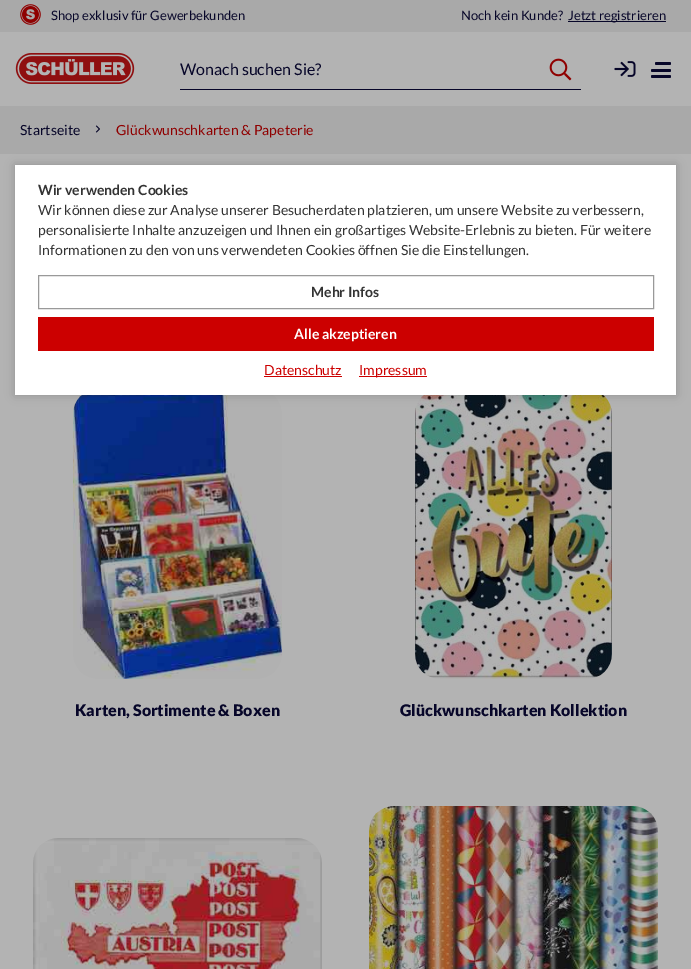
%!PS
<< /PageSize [691 969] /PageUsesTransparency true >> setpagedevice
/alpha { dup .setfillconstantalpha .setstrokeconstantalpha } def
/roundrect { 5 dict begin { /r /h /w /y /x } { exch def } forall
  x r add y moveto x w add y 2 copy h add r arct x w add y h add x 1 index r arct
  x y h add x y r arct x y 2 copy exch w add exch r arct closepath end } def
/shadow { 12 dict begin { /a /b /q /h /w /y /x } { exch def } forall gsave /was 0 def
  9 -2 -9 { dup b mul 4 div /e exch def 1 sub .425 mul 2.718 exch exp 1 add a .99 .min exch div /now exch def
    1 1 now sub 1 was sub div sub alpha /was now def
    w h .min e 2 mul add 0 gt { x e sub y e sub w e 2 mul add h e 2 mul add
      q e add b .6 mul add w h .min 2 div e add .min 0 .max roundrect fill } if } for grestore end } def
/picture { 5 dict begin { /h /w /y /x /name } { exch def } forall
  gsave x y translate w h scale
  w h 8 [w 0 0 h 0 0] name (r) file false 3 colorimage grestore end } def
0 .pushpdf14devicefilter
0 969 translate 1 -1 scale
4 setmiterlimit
0.702 setgray
0 0 691 969 rectfill
0.663 setgray
0 0 691 32 rectfill
(img1.rgb) 20 4 21 21 picture
/Lato-Regular [13 0 0 -13 0 0] selectfont
0.027 0.024 0.161 setrgbcolor
51 20 moveto (Shop exklusiv für Gewerbekunden) show
461 20 moveto (Noch kein Kunde?) show
568 21 98 1 rectfill
568 20 moveto (Jetzt registrieren) show
(img2.rgb) 15 53 120 31 picture
180 89 401 1 rectfill
/Lato-Regular [16 0 0 -16 0 0] selectfont
180 75 moveto (Wonach suchen Sie?) show
(img3.rgb) 549 58 23 23 picture
(img4.rgb) 614 61 22 16 picture
655 62 16 3 1.5 roundrect fill
651 69 20 3 1.5 roundrect fill
651 75 20 3 1.5 roundrect fill
0.663 setgray
0 106 691 48 rectfill
/Lato-Regular [14 0 0 -14 0 0] selectfont
0.027 0.024 0.161 setrgbcolor
20 135 moveto (Startseite) show
(img5.rgb) 95 125 5 8 picture
0.561 0 0 setrgbcolor
116 135 moveto (Glückwunschkarten & Papeterie) show
(img6.rgb) 73 395 209 284 picture
/Lato-Black [16 0 0 -16 0 0] selectfont
0.027 0.024 0.161 setrgbcolor
75 716 moveto (Karten, Sortimente & Boxen) show
(img7.rgb) 415 395 197 284 picture
400 716 moveto (Glückwunschkarten Kollektion) show
(img8.rgb) 33 838 289 131 picture
(img9.rgb) 369 806 289 163 picture
0 setgray
15 165 661 230 0 5 0.2 shadow
1 setgray
15 165 661 230 rectfill
/Lato-Bold [14 0 0 -14 0 0] selectfont
0.2 setgray
38 195 moveto (Wir verwenden Cookies) show
/Lato-Regular [14 0 0 -14 0 0] selectfont
38 215 moveto (Wir können diese zur Analyse unserer Besucherdaten platzieren, um unsere Website zu verbessern,) show
38 235 moveto (personalisierte Inhalte anzuzeigen und Ihnen ein großartiges Website-Erlebnis zu bieten. Für weitere) show
38 255 moveto (Informationen zu den von uns verwendeten Cookies öffnen Sie die Einstellungen.) show
0.6 setgray
38.5 275.5 615 33 rectstroke
/Lato-Bold [14 0 0 -14 0 0] selectfont
0.2 setgray
311 297 moveto (Mehr Infos) show
0.8 0 0 setrgbcolor
38 317 616 34 rectfill
1 setgray
294 339 moveto (Alle akzeptieren) show
/Lato-Regular [14 0 0 -14 0 0] selectfont
0.8 0 0 setrgbcolor
264 375 moveto (Datenschutz) show
264 376 78 1 rectfill
359 376 68 1 rectfill
359 375 moveto (Impressum) show
.poppdf14devicefilter showpage
